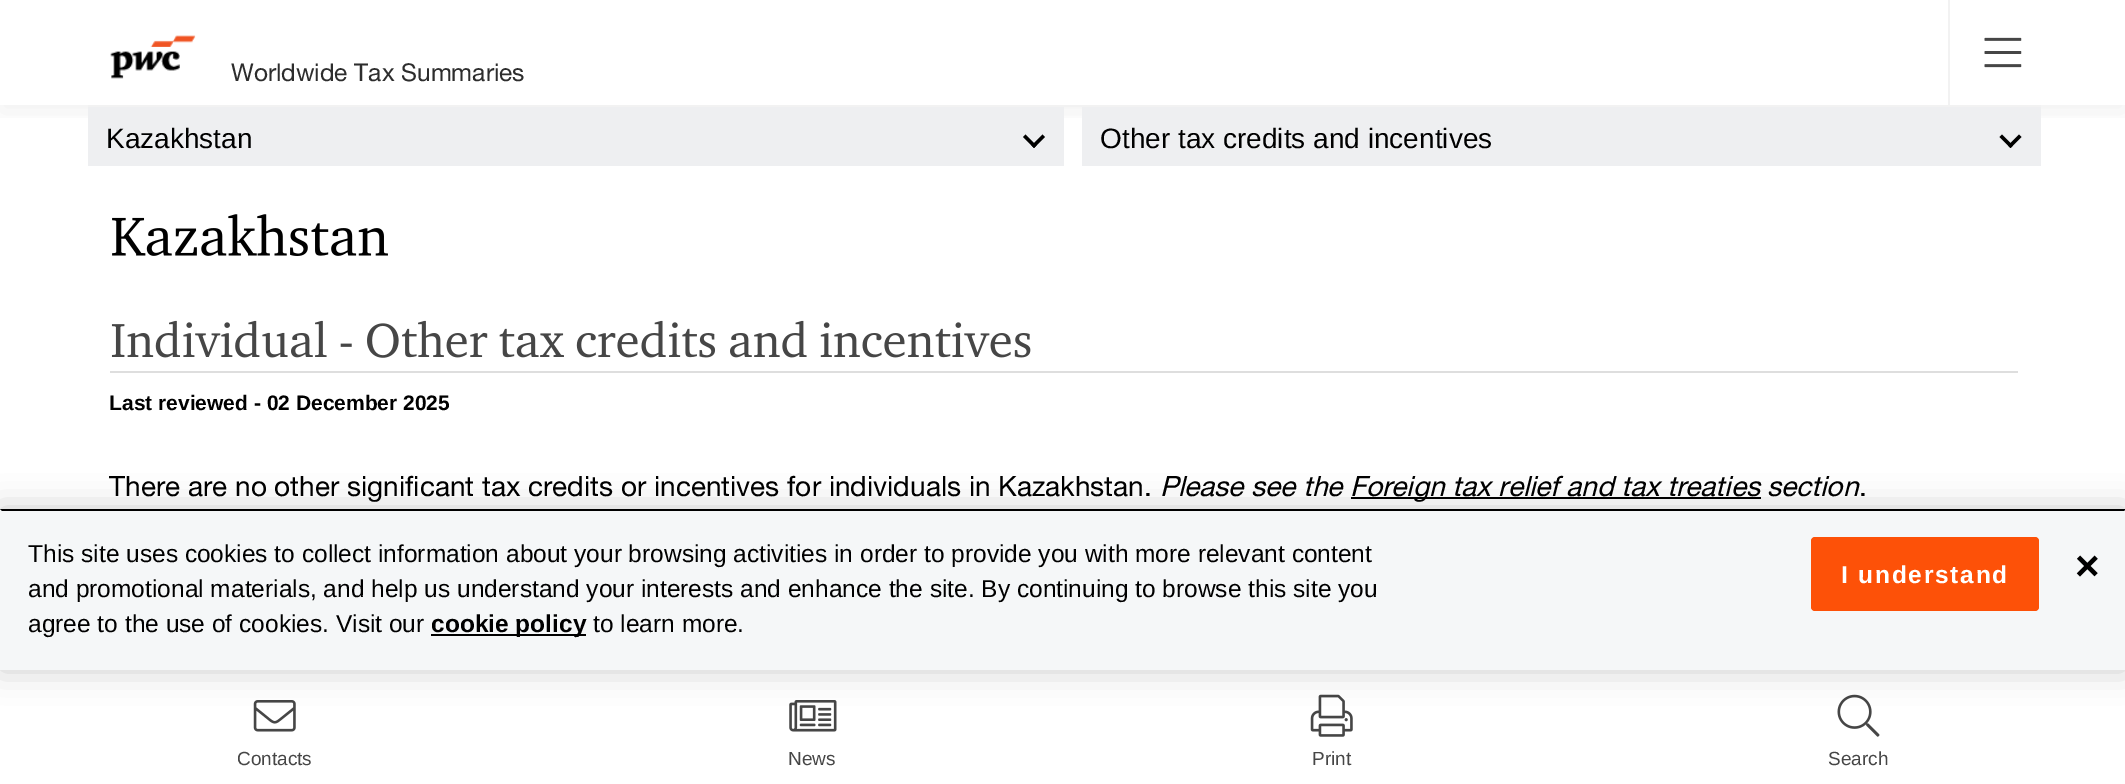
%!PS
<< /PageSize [2125 784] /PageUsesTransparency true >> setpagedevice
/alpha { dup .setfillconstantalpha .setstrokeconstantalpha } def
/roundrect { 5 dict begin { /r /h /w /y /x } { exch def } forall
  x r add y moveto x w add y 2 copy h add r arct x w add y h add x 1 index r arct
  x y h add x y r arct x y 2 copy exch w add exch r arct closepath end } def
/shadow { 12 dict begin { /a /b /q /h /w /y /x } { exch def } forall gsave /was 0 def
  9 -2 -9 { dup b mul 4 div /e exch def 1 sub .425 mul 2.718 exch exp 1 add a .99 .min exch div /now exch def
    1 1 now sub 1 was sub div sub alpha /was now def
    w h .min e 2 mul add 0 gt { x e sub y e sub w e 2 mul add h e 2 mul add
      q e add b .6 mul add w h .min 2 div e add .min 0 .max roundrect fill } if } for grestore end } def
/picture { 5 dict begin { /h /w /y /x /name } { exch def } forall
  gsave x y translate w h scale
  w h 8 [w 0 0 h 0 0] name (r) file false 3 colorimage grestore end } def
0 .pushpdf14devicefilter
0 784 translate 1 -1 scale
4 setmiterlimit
1 setgray
0 0 2125 784 rectfill
gsave
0 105 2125 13 rectclip
0 setgray
0 7 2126 105 0 14 0.06 shadow
grestore
(img1.rgb) 110 35 86 44 picture
/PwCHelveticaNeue-Regular [24.5 0 0 -24.5 0 0] selectfont
0.176 setgray
231 81 moveto (Worldwide Tax Summaries) show
0.949 setgray
1948 0 2 105 rectfill
(img2.rgb) 1984 37 38 31 picture
88 105 1953 2 rectfill
0.933 0.937 0.945 setrgbcolor
88 107 976 59 rectfill
/LiberationSans-Regular [28 0 0 -28 0 0] selectfont
0 setgray
106 148 moveto (Kazakhstan) show
newpath 1045 137 moveto 1034 148 lineto 1031.5 145.5 lineto 1042.5 134.5 lineto closepath fill
newpath 1036.5 145.5 moveto 1034 148 lineto 1023 137 lineto 1025.5 134.5 lineto closepath fill
0.933 0.937 0.945 setrgbcolor
1082 107 959 59 rectfill
0 setgray
1100 148 moveto (Other tax credits and incentives) show
newpath 2021.5 137 moveto 2010.5 148 lineto 2008 145.5 lineto 2019 134.5 lineto closepath fill
newpath 2013 145.5 moveto 2010.5 148 lineto 1999.5 137 lineto 2002 134.5 lineto closepath fill
(img3.rgb) 112 214 276 42 picture
0.871 setgray
110 371 1908 2 rectfill
(img4.rgb) 111 320 920 38 picture
/LiberationSans-Bold [21 0 0 -21 0 0] selectfont
0 setgray
109 410 moveto (Last reviewed - 02 December 2025) show
/PwCHelveticaNeue-Regular [28 0 0 -28 0 0] selectfont
109 496 moveto (There are no other significant tax credits or incentives for individuals in Kazakhstan.) show
/PwCHelveticaNeue-Italic [28 0 0 -28 0 0] selectfont
1160 496 moveto (Please see the) show
1351 497 410 2 rectfill
1350 496 moveto (Foreign tax relief and tax treaties section) show
/PwCHelveticaNeue-Regular [28 0 0 -28 0 0] selectfont
1859 496 moveto (.) show
(img5.rgb) 253 700 43 32 picture
/LiberationSans-Regular [19 0 0 -19 0 0] selectfont
0.275 setgray
237 765 moveto (Contacts) show
(img6.rgb) 789 700 48 32 picture
788 765 moveto (News) show
(img7.rgb) 1310 694 43 43 picture
1312 765 moveto (Print) show
(img8.rgb) 1837 694 43 43 picture
1828 765 moveto (Search) show
0 setgray
0 509 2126 161 0 16 0.2 shadow
0.961 0.969 0.973 setrgbcolor
0 509 2125 161 rectfill
0 setgray
newpath 0 509 moveto 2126 509 lineto 2124 511 lineto 2 511 lineto closepath fill
/LiberationSans-Regular [24.5 0 0 -24.5 0 0] selectfont
28 562 moveto (This site uses cookies to collect information about your browsing activities in order to provide you with more relevant content) show
28 597 moveto (and promotional materials, and help us understand your interests and enhance the site. By continuing to browse this site you) show
28 632 moveto (agree to the use of cookies. Visit our) show
431 634 155 2 rectfill
/LiberationSans-Bold [24.5 0 0 -24.5 0 0] selectfont
431 632 moveto (cookie policy) show
/LiberationSans-Regular [24.5 0 0 -24.5 0 0] selectfont
593 632 moveto (to learn more.) show
0.992 0.318 0.031 setrgbcolor
1811 537 228 74 4 roundrect fill
/LiberationSans-Bold [24.5 0 0 -24.5 0 0] selectfont
1 setgray
1841 583 moveto 1.75 0 (I understand) ashow
/LiberationSans-Bold [42 0 0 -42 0 0] selectfont
0 setgray
2075 580 moveto (×) show
.poppdf14devicefilter showpage
